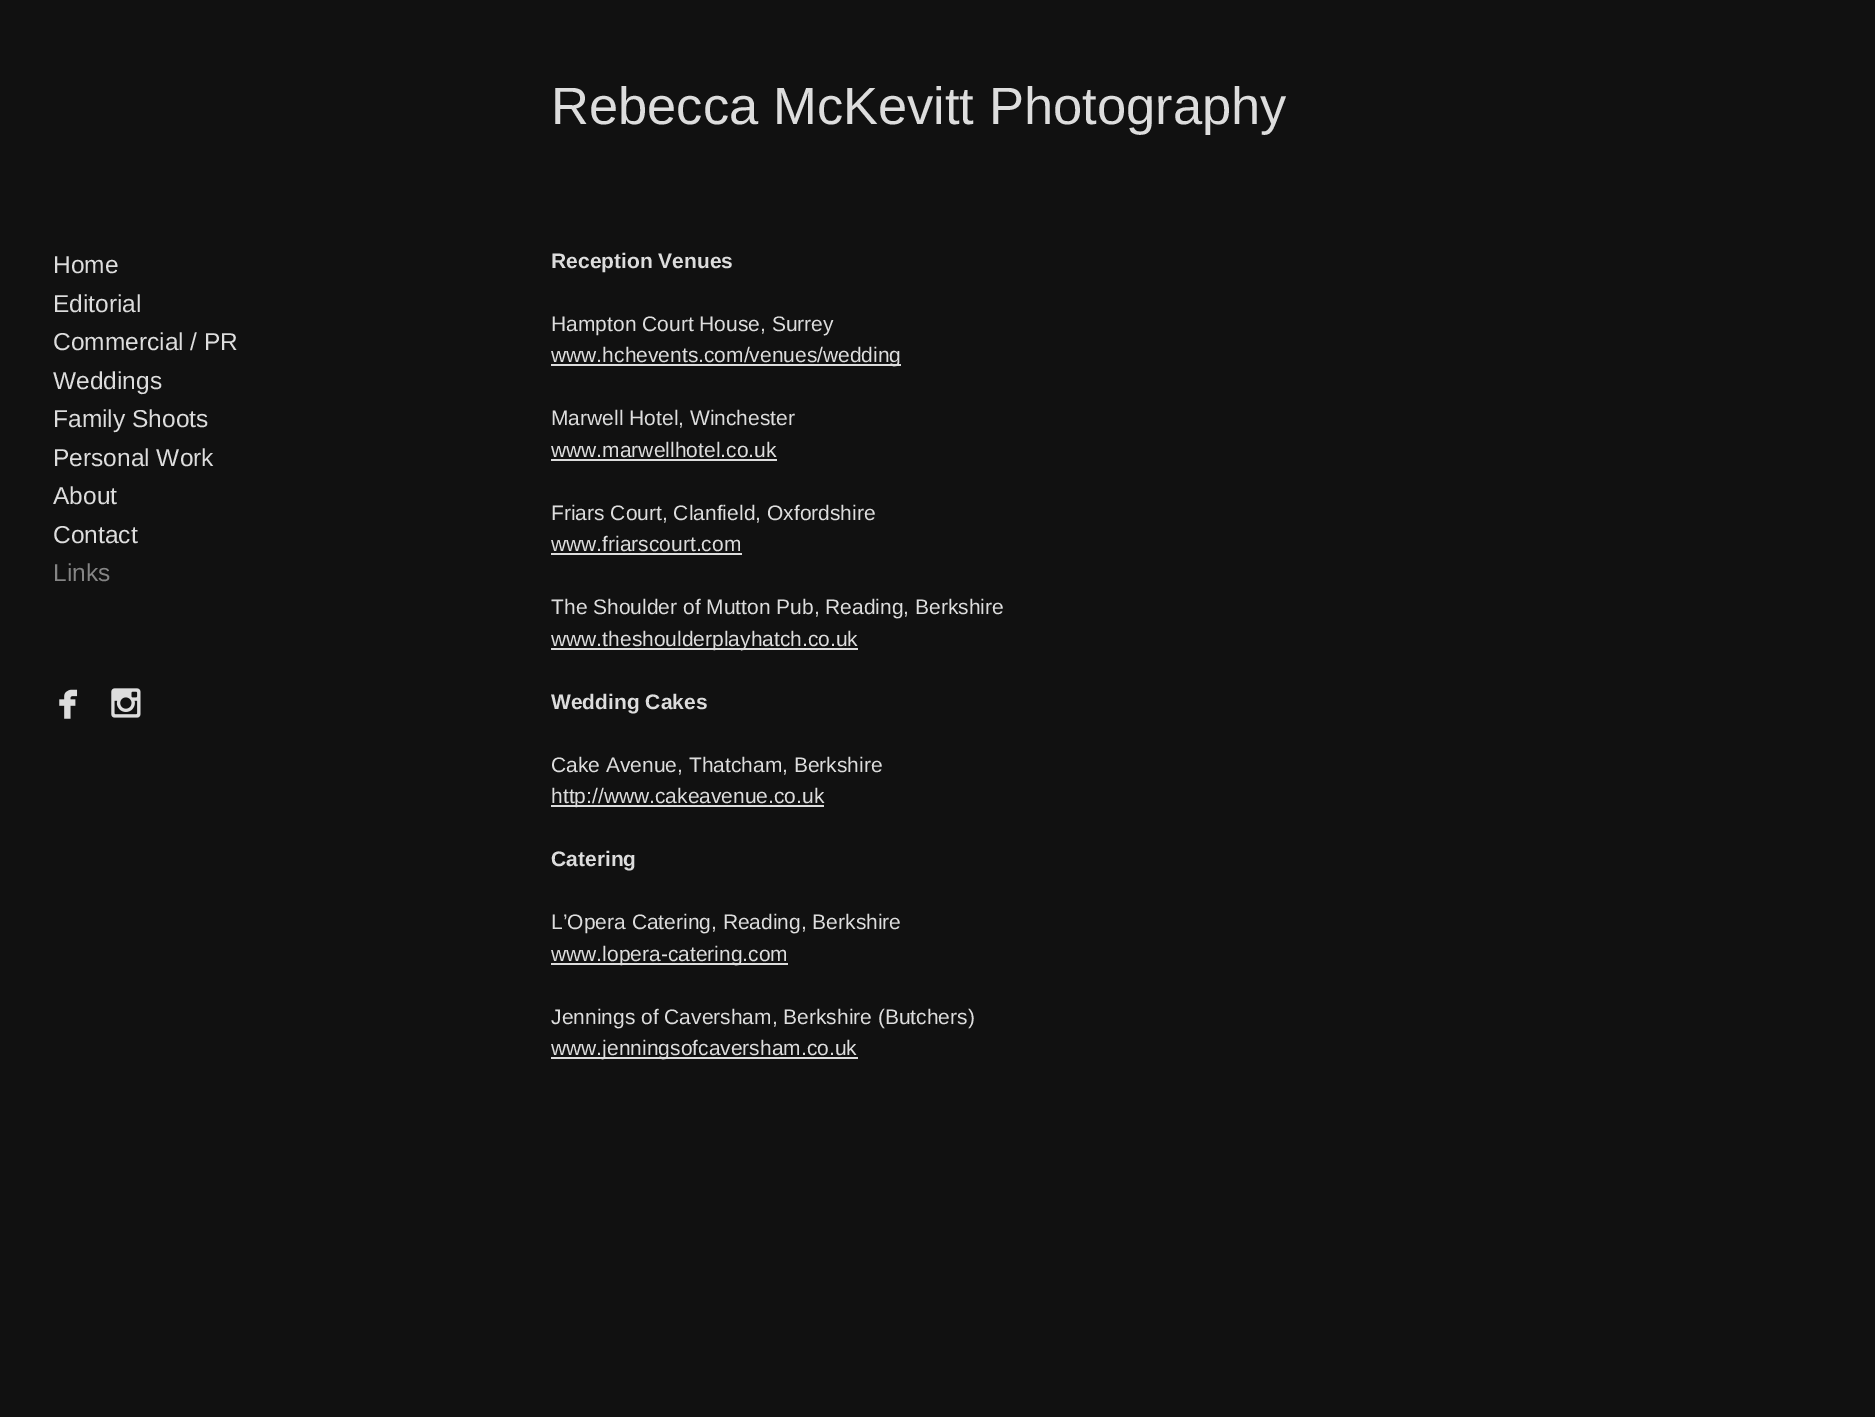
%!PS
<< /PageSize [1875 1417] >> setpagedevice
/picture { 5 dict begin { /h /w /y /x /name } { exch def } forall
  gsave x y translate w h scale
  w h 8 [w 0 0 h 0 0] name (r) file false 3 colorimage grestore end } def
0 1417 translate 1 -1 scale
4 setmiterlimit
0.067 setgray
0 0 1875 1417 rectfill
/LiberationSans-Regular [52.5 0 0 -52.5 0 0] selectfont
0.867 setgray
551 124 moveto (Rebecca McKevitt Photography) show
/LiberationSans-Regular [24.5 0 0 -24.5 0 0] selectfont
53 273 moveto (Home) show
53 312 moveto (Editorial) show
53 350 moveto (Commercial / PR) show
53 389 moveto (Weddings) show
53 427 moveto (Family Shoots) show
53 466 moveto (Personal Work) show
53 504 moveto (About) show
53 543 moveto (Contact) show
0.522 setgray
53 581 moveto (Links) show
/LiberationSans-Bold [21 0 0 -21 0 0] selectfont
0.867 setgray
551 268 moveto (Reception Venues) show
/LiberationSans-Regular [21 0 0 -21 0 0] selectfont
551 331 moveto (Hampton Court House, Surrey) show
551 364 350 2 rectfill
551 362 moveto (www.hchevents.com/venues/wedding) show
551 425 moveto (Marwell Hotel, Winchester) show
551 457 moveto (www.marwellhotel.co.uk) show
551 459 226 2 rectfill
551 520 moveto (Friars Court, Clanfield, Oxfordshire) show
551 551 moveto (www.friarscourt.com) show
551 553 191 2 rectfill
551 614 moveto (The Shoulder of Mutton Pub, Reading, Berkshire) show
551 648 307 2 rectfill
551 646 moveto (www.theshoulderplayhatch.co.uk) show
/LiberationSans-Bold [21 0 0 -21 0 0] selectfont
551 709 moveto (Wedding Cakes) show
/LiberationSans-Regular [21 0 0 -21 0 0] selectfont
551 772 moveto (Cake Avenue, Thatcham, Berkshire) show
551 805 273 2 rectfill
551 803 moveto (http://www.cakeavenue.co.uk) show
/LiberationSans-Bold [21 0 0 -21 0 0] selectfont
551 866 moveto (Catering) show
/LiberationSans-Regular [21 0 0 -21 0 0] selectfont
551 929 moveto (L’Opera Catering, Reading, Berkshire) show
551 963 237 2 rectfill
551 961 moveto (www.lopera-catering.com) show
551 1024 moveto (Jennings of Caversham, Berkshire \(Butchers\)) show
551 1057 307 2 rectfill
551 1055 moveto (www.jenningsofcaversham.co.uk) show
(img1.rgb) 59 689 19 30 picture
(img2.rgb) 111 688 30 30 picture
showpage
